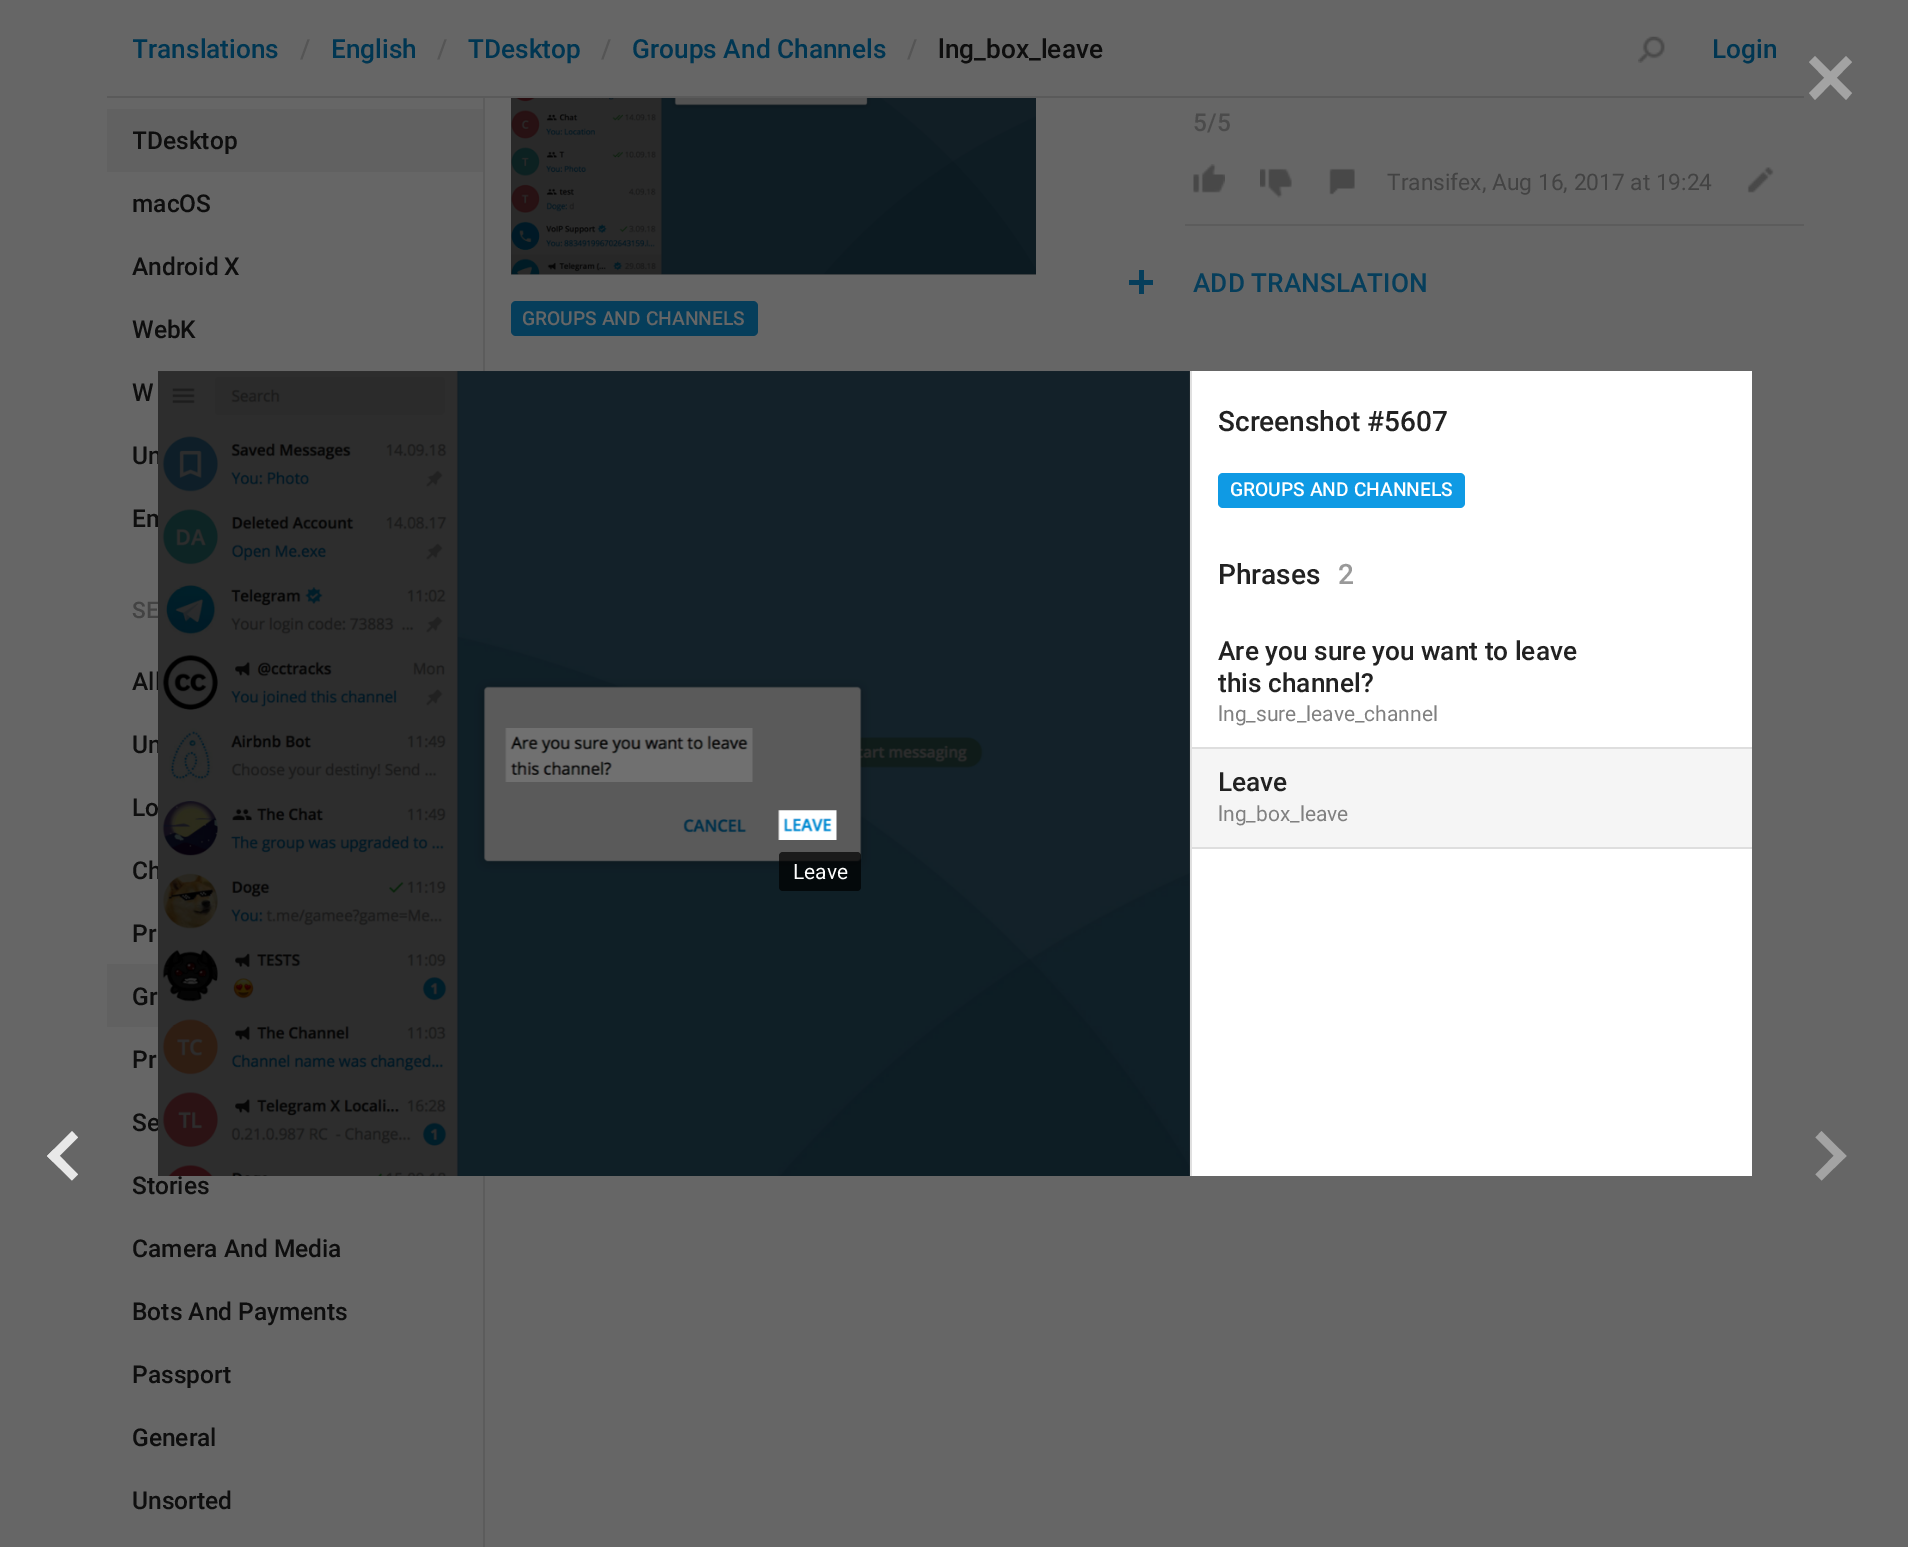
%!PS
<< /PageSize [1908 1547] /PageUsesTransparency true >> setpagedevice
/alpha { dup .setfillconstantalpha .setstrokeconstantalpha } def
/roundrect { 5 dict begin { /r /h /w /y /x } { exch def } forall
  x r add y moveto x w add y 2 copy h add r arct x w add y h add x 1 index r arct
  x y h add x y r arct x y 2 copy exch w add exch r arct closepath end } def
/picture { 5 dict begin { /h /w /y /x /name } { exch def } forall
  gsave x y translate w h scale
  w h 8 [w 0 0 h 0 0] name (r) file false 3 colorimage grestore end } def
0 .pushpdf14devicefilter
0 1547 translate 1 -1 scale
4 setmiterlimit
0.4 setgray
0 0 1908 1547 rectfill
0.353 setgray
107 96 1697 2 rectfill
gsave
133 33 145 35 rectclip
/Roboto-Medium [26.25 0 0 -26.25 0 0] selectfont
0 0.212 0.322 setrgbcolor
132 58 moveto (Translations) show
grestore
/Roboto-Medium [26.25 0 0 -26.25 0 0] selectfont
0.333 setgray
300 58 moveto (/) show
0 0.212 0.322 setrgbcolor
331 58 moveto (English) show
0.333 setgray
437 58 moveto (/) show
0 0.212 0.322 setrgbcolor
468 58 moveto (TDesktop) show
0.333 setgray
601 58 moveto (/) show
0 0.212 0.322 setrgbcolor
632 58 moveto (Groups And Channels) show
0.333 setgray
907 58 moveto (/) show
0.055 setgray
938 58 moveto (lng_box_leave) show
(img1.rgb) 1638 36 27 27 picture
0 0.212 0.322 setrgbcolor
1712 58 moveto (Login) show
0.38 setgray
107 109 376 63 rectfill
gsave
133 124 313 32 rectclip
/Roboto-Medium [24.5 0 0 -24.5 0 0] selectfont
0.055 setgray
132 149 moveto (TDesktop) show
grestore
/Roboto-Medium [24.5 0 0 -24.5 0 0] selectfont
0.055 setgray
132 212 moveto (macOS) show
132 275 moveto (Android X) show
132 338 moveto (WebK) show
132 401 moveto (W) show
132 464 moveto (Un) show
132 527 moveto (Em) show
/Roboto-Medium [22.75 0 0 -22.75 0 0] selectfont
0.263 setgray
132 618 moveto (SE) show
/Roboto-Medium [24.5 0 0 -24.5 0 0] selectfont
0.055 setgray
132 690 moveto (All) show
132 753 moveto (Un) show
132 816 moveto (Lo) show
132 879 moveto (Ch) show
132 942 moveto (Pr) show
0.38 setgray
107 964 51 63 rectfill
0.055 setgray
132 1005 moveto (Gr) show
132 1068 moveto (Pr) show
132 1131 moveto (Se) show
132 1194 moveto (Stories) show
132 1257 moveto (Camera And Media) show
132 1320 moveto (Bots And Payments) show
132 1383 moveto (Passport) show
132 1446 moveto (General) show
132 1509 moveto (Unsorted) show
0.361 setgray
483 98 2 1449 rectfill
gsave
1080 35 724 193 rectclip
newpath 1185 224 moveto 1185 226 lineto 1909 226 lineto 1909 37 lineto 1804 37 lineto 1804 224 lineto closepath fill
grestore
0.294 setgray
1193 131 moveto (5/5) show
(img2.rgb) 1193 164 32 29 picture
(img3.rgb) 1260 168 32 30 picture
(img4.rgb) 1329 168 26 27 picture
/Roboto-Regular [22.75 0 0 -22.75 0 0] selectfont
0.263 setgray
1387 190 moveto (Transifex) show
1482 190 moveto (, Aug 16, 2017 at 19:24) show
(img5.rgb) 1747 167 27 26 picture
0.024 0.243 0.357 setrgbcolor
1129 280 24 5 rectfill
1139 270 5 24 rectfill
/Roboto-Medium [26.25 0 0 -26.25 0 0] selectfont
1193 292 moveto (ADD TRANSLATION) show
0.31 setgray
511 274 525 1 rectfill
(img6.rgb) 511 98 525 177 picture
0.024 0.243 0.357 setrgbcolor
511 301 247 35 5 roundrect fill
/Roboto-Medium [19.25 0 0 -19.25 0 0] selectfont
0.4 setgray
522 325 moveto (GROUPS AND CHANNELS) show
(img7.rgb) 158 371 1032 805 picture
1 setgray
1192 371 560 805 rectfill
0.878 setgray
1190 371 2 805 rectfill
/Roboto-Medium [28 0 0 -28 0 0] selectfont
0.133 setgray
1218 431 moveto (Screenshot #5607) show
0.059 0.604 0.894 setrgbcolor
1218 473 247 35 5 roundrect fill
/Roboto-Medium [19.25 0 0 -19.25 0 0] selectfont
1 setgray
1230 496 moveto (GROUPS AND CHANNELS) show
/Roboto-Medium [28 0 0 -28 0 0] selectfont
0.133 setgray
1218 584 moveto (Phrases) show
0.6 setgray
1338 584 moveto (2) show
/Roboto-Medium [26.25 0 0 -26.25 0 0] selectfont
0.133 setgray
1218 660 moveto (Are you sure you want to leave) show
1218 692 moveto (this channel?) show
/Roboto-Regular [21 0 0 -21 0 0] selectfont
0.502 setgray
1218 721 moveto (lng_sure_leave_channel) show
0.961 setgray
1192 749 560 98 rectfill
0.871 setgray
1192 747 560 2 rectfill
1192 847 560 2 rectfill
/Roboto-Medium [26.25 0 0 -26.25 0 0] selectfont
0.133 setgray
1218 791 moveto (Leave) show
/Roboto-Regular [21 0 0 -21 0 0] selectfont
0.502 setgray
1218 821 moveto (lng_box_leave) show
0.2 alpha
0 setgray
158 371 1032 805 rectfill
1 alpha
(img8.rgb) 505 728 248 54 picture
0.56 alpha
158 371 1032 805 rectfill
1 alpha
(img9.rgb) 778 810 59 30 picture
0.7 alpha
779 852 82 39 4 roundrect fill
1 alpha
1 setgray
793 879 moveto (Leave) show
0.639 setgray
newpath 1815 56 moveto 1852 93 lineto 1846 100 lineto 1809 62 lineto closepath fill
newpath 1809 93 moveto 1846 56 lineto 1852 62 lineto 1815 100 lineto closepath fill
newpath 1821.5 1131 moveto 1846.5 1156 lineto 1840 1162 lineto 1815.5 1137.5 lineto closepath fill
newpath 1815.5 1174.5 moveto 1840 1149.5 lineto 1846.5 1156 lineto 1821.5 1180.5 lineto closepath fill
0.91 setgray
newpath 53.5 1149.5 moveto 78 1174.5 lineto 72 1180.5 lineto 47 1156 lineto closepath fill
newpath 47 1156 moveto 72 1131 lineto 78 1137.5 lineto 53.5 1162 lineto closepath fill
.poppdf14devicefilter showpage
